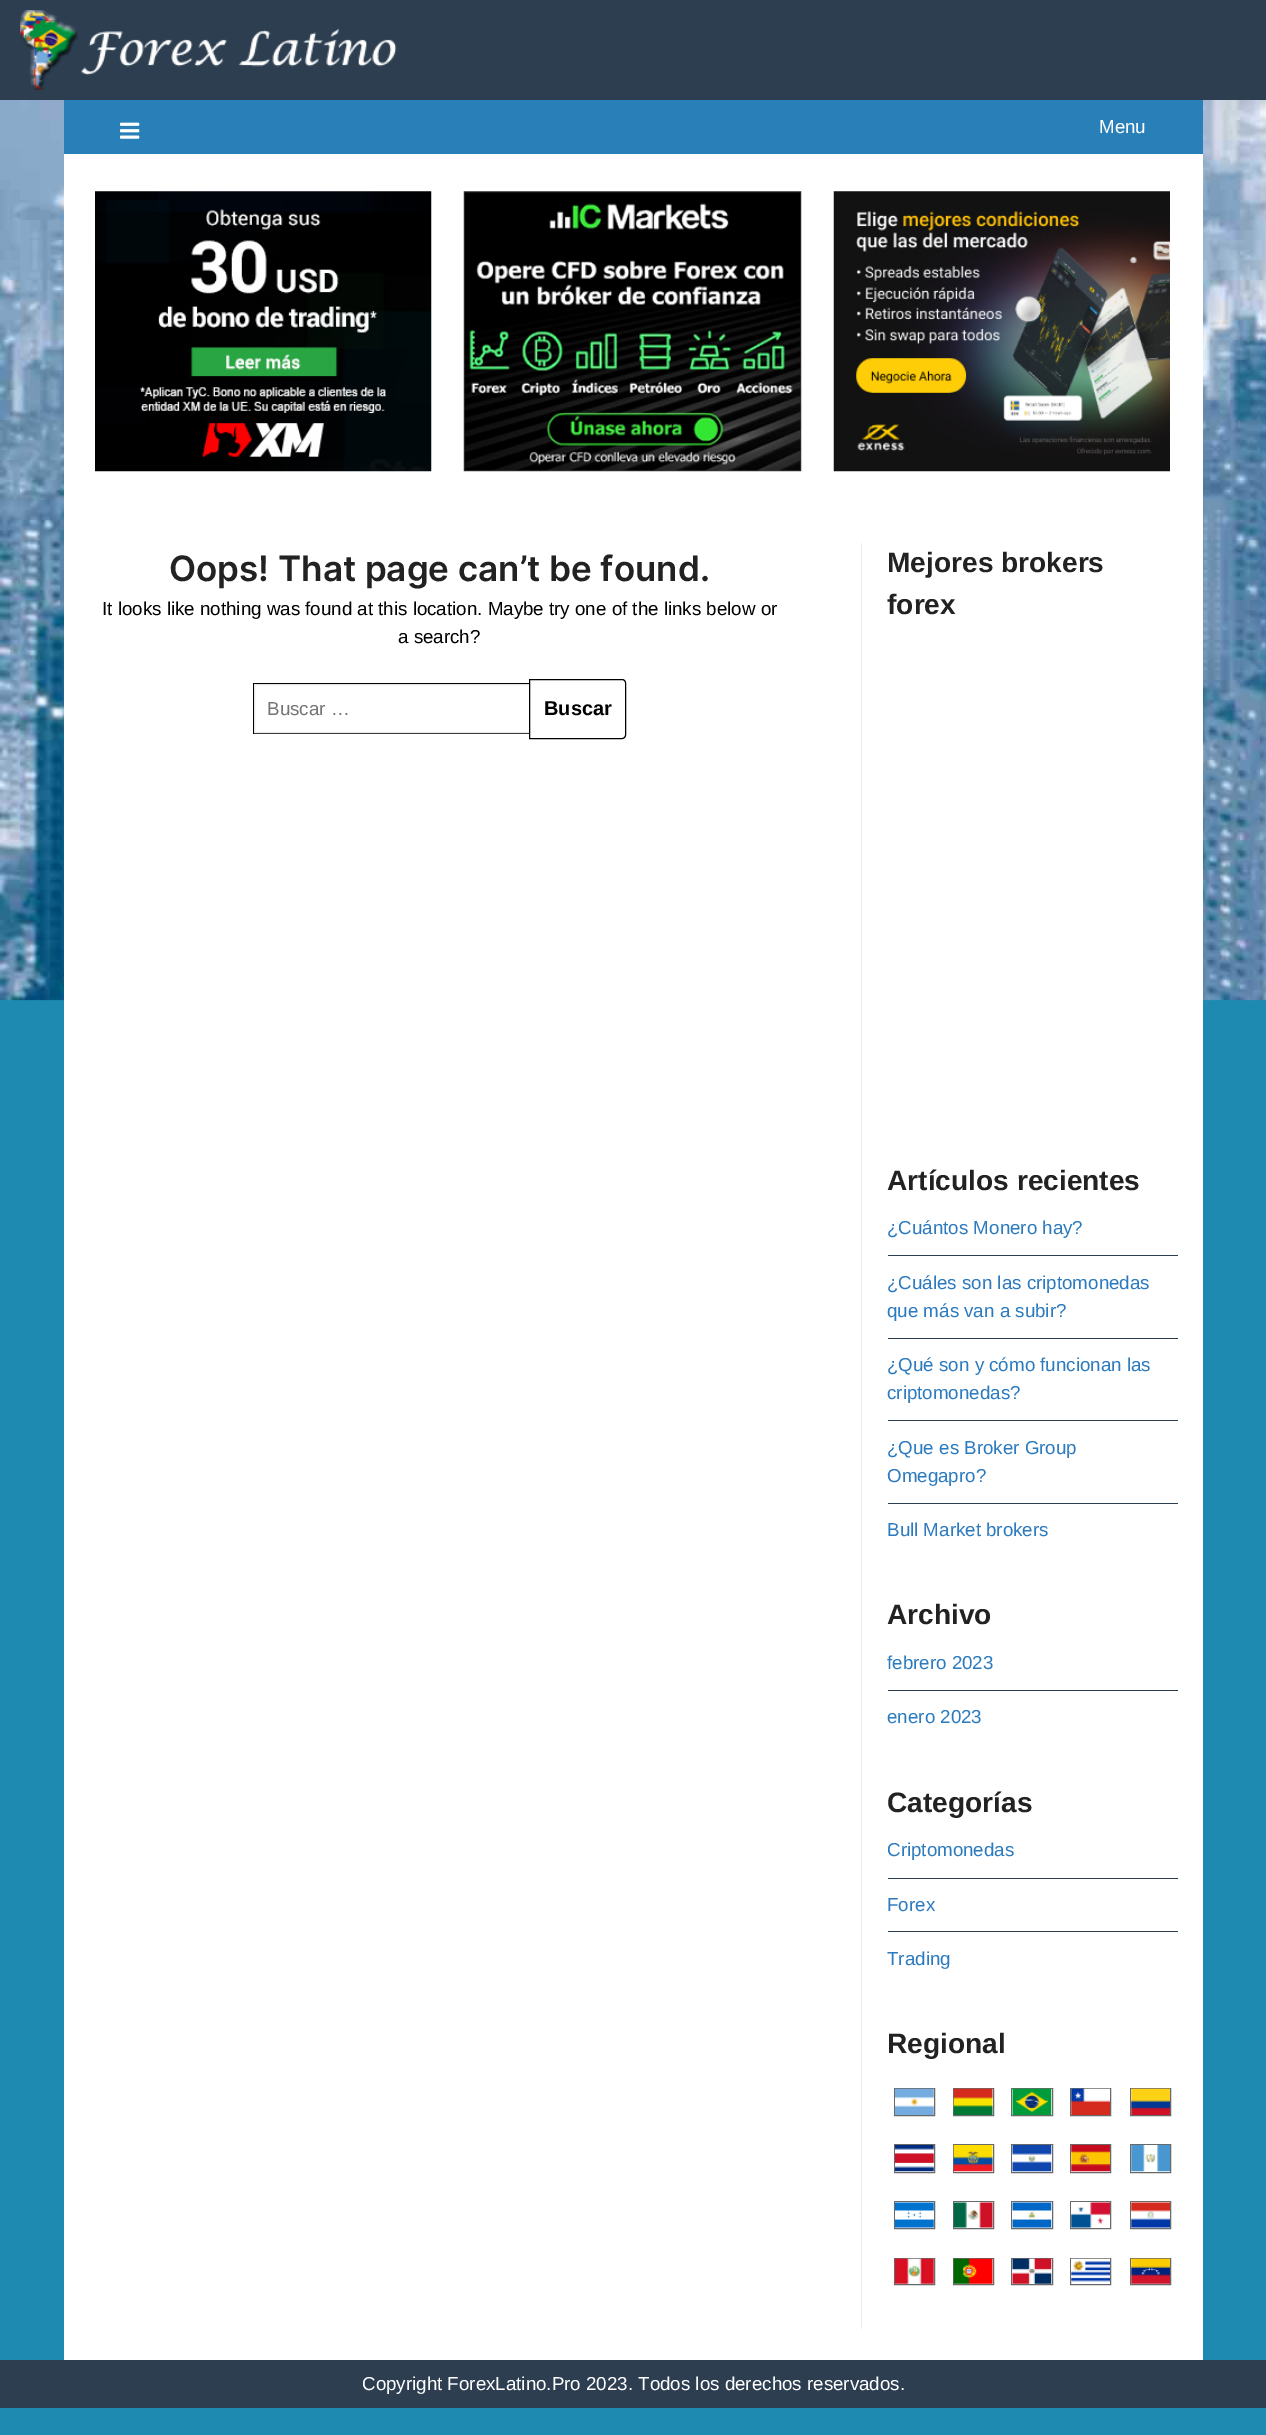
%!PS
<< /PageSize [1266 2435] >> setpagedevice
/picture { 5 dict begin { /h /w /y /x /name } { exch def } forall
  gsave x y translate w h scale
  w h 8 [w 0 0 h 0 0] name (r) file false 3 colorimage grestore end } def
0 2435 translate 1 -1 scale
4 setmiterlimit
0.118 0.541 0.698 setrgbcolor
0 0 1266 2435 rectfill
(img1.rgb) 0 100 1266 901 picture
0.173 0.243 0.314 setrgbcolor
0 0 1266 100 rectfill
(img2.rgb) 20 10 377 80 picture
0.161 0.502 0.725 setrgbcolor
64 100 1139 54 rectfill
(img3.rgb) 120 122 20 17 picture
/LiberationSans-Regular [18.75 0 0 -18.75 0 0] selectfont
1 setgray
1099 133 moveto (Menu) show
64 154 1139 2206 rectfill
(img4.rgb) 95 191 337 281 picture
(img5.rgb) 463 191 339 281 picture
(img6.rgb) 833 191 337 281 picture
/Inter-SemiBold [35 0 0 -35 0 0] selectfont
0.133 setgray
169 581 moveto (Oops! That page can’t be found.) show
/LiberationSans-Regular [18.75 0 0 -18.75 0 0] selectfont
0 setgray
102 615 moveto (It looks like nothing was found at this location. Maybe try one of the links below or) show
398 643 moveto (a search?) show
253 683 277 1 rectfill
253 733 277 1 rectfill
253 683 1 51 rectfill
0.898 0.902 0.914 setrgbcolor
254.5 684.5 275 48 rectstroke
0.459 setgray
267 715 moveto (Buscar …) show
0 setgray
newpath 529.5 679.5 moveto 622 679.5 lineto 624 679.5 625.5 681 625.5 683 curveto 625.5 735 lineto 625.5 737 624 738.5 622 738.5 curveto 529.5 738.5 lineto closepath stroke
/LiberationSans-Bold [20 0 0 -20 0 0] selectfont
544 715 moveto (Buscar) show
0.925 setgray
861 543 1 1786 rectfill
/LiberationSans-Bold [28.1 0 0 -28.1 0 0] selectfont
0.133 setgray
887 572 moveto (Mejores brokers) show
887 614 moveto (forex) show
887 1190 moveto (Artículos recientes) show
0.173 0.243 0.314 setrgbcolor
888 1255 290 1 rectfill
/LiberationSans-Regular [18.75 0 0 -18.75 0 0] selectfont
0.176 0.482 0.749 setrgbcolor
887 1234 moveto (¿Cuántos Monero hay?) show
0.173 0.243 0.314 setrgbcolor
888 1338 290 1 rectfill
0.176 0.482 0.749 setrgbcolor
887 1289 moveto (¿Cuáles son las criptomonedas) show
887 1317 moveto (que más van a subir?) show
0.173 0.243 0.314 setrgbcolor
888 1420 290 1 rectfill
0.176 0.482 0.749 setrgbcolor
887 1371 moveto (¿Qué son y cómo funcionan las) show
887 1399 moveto (criptomonedas?) show
0.173 0.243 0.314 setrgbcolor
888 1503 290 1 rectfill
0.176 0.482 0.749 setrgbcolor
887 1454 moveto (¿Que es Broker Group) show
887 1482 moveto (Omegapro?) show
887 1536 moveto (Bull Market brokers) show
/LiberationSans-Bold [28.1 0 0 -28.1 0 0] selectfont
0.133 setgray
887 1624 moveto (Archivo) show
0.173 0.243 0.314 setrgbcolor
888 1690 290 1 rectfill
/LiberationSans-Regular [18.75 0 0 -18.75 0 0] selectfont
0.176 0.482 0.749 setrgbcolor
887 1669 moveto (febrero 2023) show
887 1723 moveto (enero 2023) show
/LiberationSans-Bold [28.1 0 0 -28.1 0 0] selectfont
0.133 setgray
887 1812 moveto (Categorías) show
0.173 0.243 0.314 setrgbcolor
888 1878 290 1 rectfill
/LiberationSans-Regular [18.75 0 0 -18.75 0 0] selectfont
0.176 0.482 0.749 setrgbcolor
887 1856 moveto (Criptomonedas) show
0.173 0.243 0.314 setrgbcolor
888 1931 290 1 rectfill
0.176 0.482 0.749 setrgbcolor
887 1911 moveto (Forex) show
887 1965 moveto (Trading) show
/LiberationSans-Bold [28.1 0 0 -28.1 0 0] selectfont
0.133 setgray
887 2053 moveto (Regional) show
0.412 setgray
894.5 2088.5 40 27 rectstroke
(img7.rgb) 895 2088 39 27 picture
953.5 2088.5 40 27 rectstroke
(img8.rgb) 953 2088 40 27 picture
1011.5 2088.5 41 27 rectstroke
(img9.rgb) 1012 2088 40 27 picture
1070.5 2088.5 40 27 rectstroke
(img10.rgb) 1071 2088 39 27 picture
1130.5 2088.5 40 27 rectstroke
(img11.rgb) 1131 2088 39 27 picture
894.5 2144.5 40 28 rectstroke
953.5 2144.5 40 28 rectstroke
1011.5 2144.5 41 28 rectstroke
1070.5 2144.5 40 28 rectstroke
1130.5 2144.5 40 28 rectstroke
(img12.rgb) 895 2145 39 27 picture
(img13.rgb) 953 2145 40 27 picture
(img14.rgb) 1012 2145 40 27 picture
(img15.rgb) 1071 2145 39 27 picture
(img16.rgb) 1131 2145 39 27 picture
894.5 2201.5 40 27 rectstroke
953.5 2201.5 40 27 rectstroke
1011.5 2201.5 41 27 rectstroke
1070.5 2201.5 40 27 rectstroke
1130.5 2201.5 40 27 rectstroke
(img17.rgb) 895 2202 39 26 picture
(img18.rgb) 953 2202 40 26 picture
(img19.rgb) 1012 2202 40 26 picture
(img20.rgb) 1071 2202 39 26 picture
(img21.rgb) 1131 2202 39 26 picture
894.5 2258.5 40 26 rectstroke
(img22.rgb) 895 2258 39 26 picture
953.5 2258.5 40 26 rectstroke
(img23.rgb) 953 2258 40 26 picture
1011.5 2258.5 41 26 rectstroke
(img24.rgb) 1012 2258 40 26 picture
1070.5 2258.5 40 26 rectstroke
(img25.rgb) 1071 2258 39 24 picture
1130.5 2258.5 40 26 rectstroke
(img26.rgb) 1131 2258 39 26 picture
0.173 0.243 0.314 setrgbcolor
0 2360 1266 48 rectfill
/LiberationSans-Regular [18.75 0 0 -18.75 0 0] selectfont
1 setgray
362 2390 moveto (Copyright ForexLatino.Pro 2023. Todos los derechos reservados.) show
showpage
